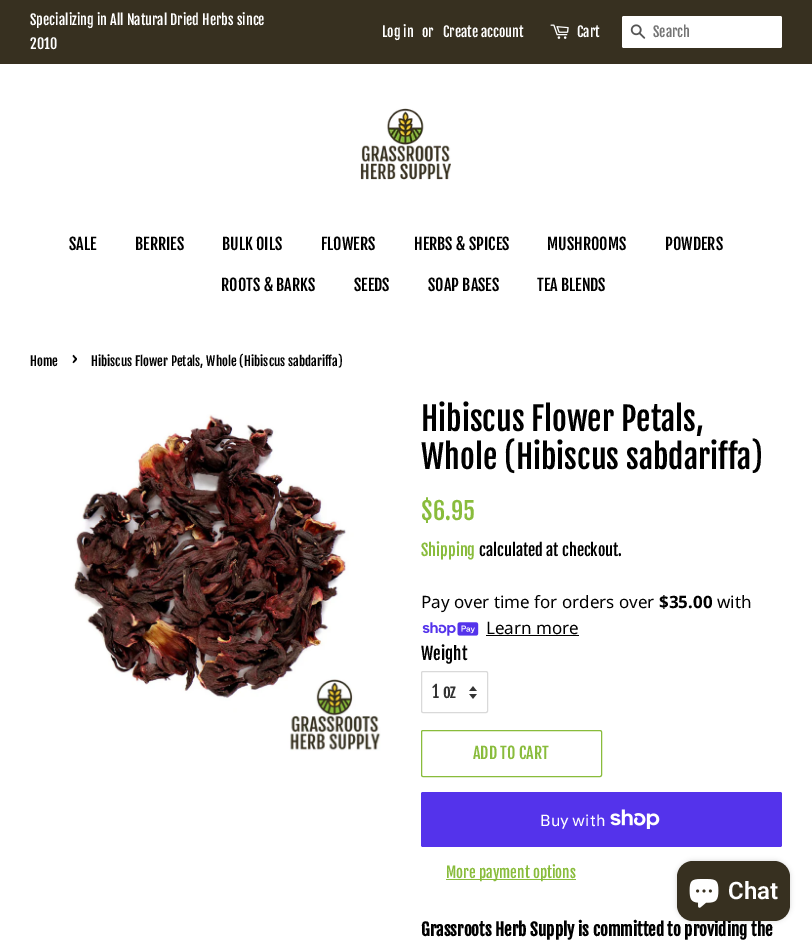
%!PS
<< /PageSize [812 942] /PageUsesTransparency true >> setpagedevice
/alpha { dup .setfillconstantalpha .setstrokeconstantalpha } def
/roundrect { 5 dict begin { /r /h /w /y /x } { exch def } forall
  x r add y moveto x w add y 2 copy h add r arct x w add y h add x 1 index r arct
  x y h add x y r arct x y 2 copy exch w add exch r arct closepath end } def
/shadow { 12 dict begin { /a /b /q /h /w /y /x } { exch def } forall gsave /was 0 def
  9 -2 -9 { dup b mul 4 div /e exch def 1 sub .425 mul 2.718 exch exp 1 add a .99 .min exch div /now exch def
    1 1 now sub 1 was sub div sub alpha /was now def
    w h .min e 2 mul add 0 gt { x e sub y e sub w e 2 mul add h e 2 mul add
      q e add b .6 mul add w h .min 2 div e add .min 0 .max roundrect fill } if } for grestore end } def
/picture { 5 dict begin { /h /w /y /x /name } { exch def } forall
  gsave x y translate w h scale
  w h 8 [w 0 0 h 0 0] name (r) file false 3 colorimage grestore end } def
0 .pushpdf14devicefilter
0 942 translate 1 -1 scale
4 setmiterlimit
1 setgray
0 0 812 942 rectfill
0.216 0.188 0.125 setrgbcolor
0 0 812 64 rectfill
/FjallaOne-Regular [14 0 0 -14 0 0] selectfont
1 setgray
30 25 moveto (Specializing in All Natural Dried Herbs since) show
30 49 moveto (2010) show
382 37 moveto (Log in) show
422 37 moveto (or) show
443 37 moveto (Create account) show
(img1.rgb) 550 24 19 15 picture
577 37 moveto (Cart) show
622 16 160 32 2 roundrect fill
(img2.rgb) 630 24 16 15 picture
0.459 setgray
653 37 moveto (Search) show
(img3.rgb) 360 108 91 72 picture
/FjallaOne-Regular [16 0 0 -16 0 0] selectfont
0 setgray
69 250 moveto (SALE) show
135 250 moveto (BERRIES) show
222 250 moveto (BULK OILS) show
321 250 moveto (FLOWERS) show
414 250 moveto (HERBS & SPICES) show
547 250 moveto (MUSHROOMS) show
665 250 moveto (POWDERS) show
221 291 moveto (ROOTS & BARKS) show
354 291 moveto (SEEDS) show
428 291 moveto (SOAP BASES) show
537 291 moveto (TEA BLENDS) show
/FjallaOne-Regular [12.75 0 0 -12.75 0 0] selectfont
30 366 moveto (Home) show
/FjallaOne-Regular [18 0 0 -18 0 0] selectfont
71 366 moveto (›) show
/FjallaOne-Regular [12.75 0 0 -12.75 0 0] selectfont
91 366 moveto (Hibiscus Flower Petals, Whole \(Hibiscus sabdariffa\)) show
(img4.rgb) 73 414 308 337 picture
/FjallaOne-Regular [32 0 0 -32 0 0] selectfont
421 431 moveto (Hibiscus Flower Petals,) show
421 469 moveto (Whole \(Hibiscus sabdariffa\)) show
/FjallaOne-Regular [24 0 0 -24 0 0] selectfont
0.537 0.737 0.235 setrgbcolor
421 520 moveto ($6.95) show
/FjallaOne-Regular [16 0 0 -16 0 0] selectfont
421 556 moveto (Shipping) show
0 setgray
479 556 moveto (calculated at checkout.) show
/NotoSans-Regular [17 0 0 -17 0 0] selectfont
421 608 moveto (Pay over time for orders over) show
/NotoSans-Bold [17 0 0 -17 0 0] selectfont
659 608 moveto ($35.00) show
/NotoSans-Regular [17 0 0 -17 0 0] selectfont
717 608 moveto (with) show
(img5.rgb) 422 622 57 14 picture
486 634 moveto (Learn more) show
486 635 93 1 rectfill
/FjallaOne-Regular [17 0 0 -17 0 0] selectfont
421 660 moveto (Weight) show
(img6.rgb) 469 686 8 13 picture
0.851 setgray
421.5 671.5 66 41 1.5 roundrect stroke
0.2 setgray
432 698 moveto (1 oz) show
0.537 0.737 0.235 setrgbcolor
421.5 730.5 180 46 1.5 roundrect stroke
/FjallaOne-Regular [16 0 0 -16 0 0] selectfont
473 759 moveto (ADD TO CART) show
0.329 0.2 0.922 setrgbcolor
421 792 361 55 2 roundrect fill
/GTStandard-Regular [16 0 0 -16 0 0] selectfont
1 setgray
540 826 moveto (Buy with) show
(img7.rgb) 610 809 50 20 picture
0.537 0.737 0.235 setrgbcolor
446 879 130 1 rectfill
/FjallaOne-Regular [15 0 0 -15 0 0] selectfont
446 878 moveto (More payment options) show
/FjallaOne-Bold [17 0 0 -17 0 0] selectfont
0 setgray
421 936 moveto (Grassroots Herb Supply is committed to providing the) show
677 861 113 60 16 2.5 0.15 shadow
0.216 0.188 0.125 setrgbcolor
677 861 113 60 16 roundrect fill
(img8.rgb) 689 879 30 29 picture
/Roboto-SemiBold [24 0 0 -24 0 0] selectfont
1 setgray
728 899 moveto (Chat) show
.poppdf14devicefilter showpage
